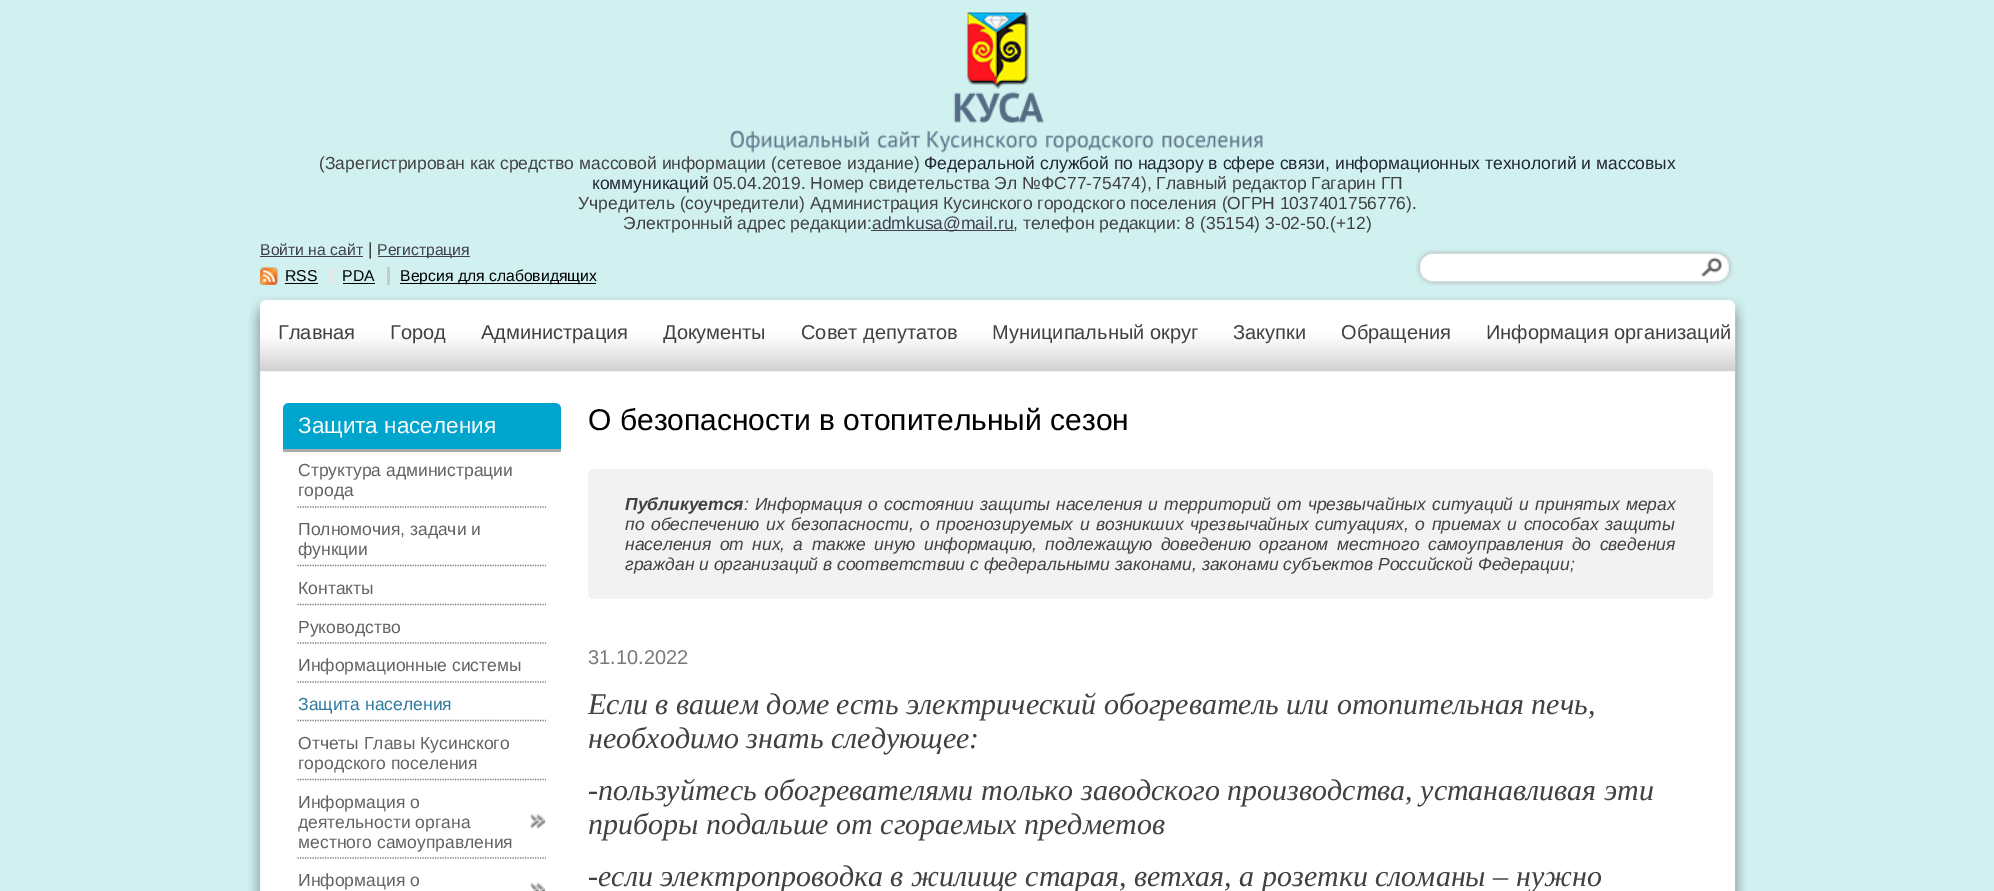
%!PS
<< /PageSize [1994 891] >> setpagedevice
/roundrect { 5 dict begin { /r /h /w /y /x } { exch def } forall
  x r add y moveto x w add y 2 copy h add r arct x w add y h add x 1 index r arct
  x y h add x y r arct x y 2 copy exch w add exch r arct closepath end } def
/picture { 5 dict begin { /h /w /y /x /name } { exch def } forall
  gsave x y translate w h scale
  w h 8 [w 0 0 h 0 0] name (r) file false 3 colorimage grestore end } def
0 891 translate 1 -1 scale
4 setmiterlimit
0.82 0.945 0.945 setrgbcolor
0 0 1994 891 rectfill
(img1.rgb) 967 12 62 78 picture
(img2.rgb) 953 92 91 31 picture
(img3.rgb) 730 130 139 23 picture
(img4.rgb) 877 131 44 17 picture
(img5.rgb) 927 131 111 22 picture
(img6.rgb) 1046 135 108 18 picture
(img7.rgb) 1162 135 101 13 picture
/LiberationSans-Regular [17.5 0 0 -17.5 0 0] selectfont
0.255 setgray
319 169 moveto (\(Зарегистрирован как средство массовой информации \(сетевое издание\)) show
0.133 0.153 0.184 setrgbcolor
924 169 moveto (Федеральной службой по надзору в сфере связи, информационных технологий и массовых) show
592 189 moveto (коммуникаций) show
0.255 setgray
713 189 moveto (05.04.2019. Номер свидетельства Эл №ФС77-75474\), Главный редактор Гагарин ГП) show
578 209 moveto (Учредитель \(соучредители\) Администрация Кусинского городского поселения \(ОГРН 1037401756776\).) show
623 229 moveto (Электронный адрес редакции:) show
0.263 0.247 0.29 setrgbcolor
871 230 143 1 rectfill
872 229 moveto (admkusa@mail.ru) show
0.255 setgray
1013 229 moveto (, телефон редакции: 8 \(35154\) 3-02-50.\(+12\)) show
/LiberationSans-Regular [15.75 0 0 -15.75 0 0] selectfont
0.263 0.247 0.29 setrgbcolor
260 255 moveto (Войти на сайт) show
260 256 103 1 rectfill
/LiberationSans-Regular [17.5 0 0 -17.5 0 0] selectfont
0.255 setgray
368 255 moveto (|) show
0.263 0.247 0.29 setrgbcolor
378 256 92 1 rectfill
/LiberationSans-Regular [15.75 0 0 -15.75 0 0] selectfont
377 255 moveto (Регистрация) show
(img8.rgb) 1415 249 319 37 picture
(img9.rgb) 260 267 18 18 picture
0 setgray
285 281 moveto (RSS) show
285 283 33 1 rectfill
0.91 setgray
330 267 3 18 rectfill
0 setgray
342 281 moveto (PDA) show
343 283 32 1 rectfill
0.788 setgray
387 267 3 18 rectfill
0 setgray
400 283 196 1 rectfill
400 281 moveto (Версия для слабовидящих) show
(img10.rgb) 248 318 1499 573 picture
(img11.rgb) 249 295 1497 24 picture
(img12.rgb) 260 300 1475 72 picture
/LiberationSans-Regular [20 0 0 -20 0 0] selectfont
0.255 setgray
278 339 moveto (Главная) show
390 339 moveto (Город) show
481 339 moveto (Администрация) show
663 339 moveto (Документы) show
801 339 moveto (Совет депутатов) show
992 339 moveto (Муниципальный округ) show
1233 339 moveto (Закупки) show
1341 339 moveto (Обращения) show
1486 339 moveto (Информация организаций) show
0 0.647 0.808 setrgbcolor
newpath 289 403 moveto 555 403 lineto 558.5 403 561 405.5 561 409 curveto 561 451 lineto 283 451 lineto 283 409 lineto 283 405.5 285.5 403 289 403 curveto closepath fill
0.671 setgray
283 449 278 3 rectfill
/LiberationSans-Regular [22.5 0 0 -22.5 0 0] selectfont
0.988 setgray
298 433 moveto (Защита населения) show
0.475 setgray
1.2 setlinewidth
[1.25 1.25] 0 setdash
newpath 297.5 507 moveto 546 507 lineto stroke
/LiberationSans-Regular [17.5 0 0 -17.5 0 0] selectfont
0.384 setgray
298 476 moveto (Структура администрации) show
298 496 moveto (города) show
0.475 setgray
newpath 297.5 565.5 moveto 546 565.5 lineto stroke
0.384 setgray
298 535 moveto (Полномочия, задачи и) show
298 555 moveto (функции) show
0.475 setgray
newpath 297.5 604.5 moveto 546 604.5 lineto stroke
0.384 setgray
298 594 moveto (Контакты) show
0.475 setgray
newpath 297.5 643 moveto 546 643 lineto stroke
0.384 setgray
298 633 moveto (Руководство) show
0.475 setgray
newpath 297.5 682 moveto 546 682 lineto stroke
0.384 setgray
298 671 moveto (Информационные системы) show
0.475 setgray
newpath 297.5 720.5 moveto 546 720.5 lineto stroke
0.18 0.475 0.616 setrgbcolor
298 710 moveto (Защита населения) show
0.475 setgray
newpath 297.5 779.5 moveto 546 779.5 lineto stroke
0.384 setgray
298 749 moveto (Отчеты Главы Кусинского) show
298 769 moveto (городского поселения) show
0.475 setgray
newpath 297.5 858 moveto 546 858 lineto stroke
(img13.rgb) 530 813 16 16 picture
0.384 setgray
298 808 moveto (Информация о) show
298 828 moveto (деятельности органа) show
298 848 moveto (местного самоуправления) show
(img14.rgb) 530 882 16 9 picture
298 886 moveto (Информация о) show
/LiberationSans-Regular [30 0 0 -30 0 0] selectfont
0 setgray
588 430 moveto (О безопасности в отопительный сезон) show
0.949 setgray
588 469 1125 130 6 roundrect fill
/LiberationSans-BoldItalic [17.5 0 0 -17.5 0 0] selectfont
0.255 setgray
625 510 moveto (Публикуется) show
/LiberationSans-Italic [17.5 0 0 -17.5 0 0] selectfont
744 510 moveto 1.25 0 32 (: Информация о состоянии защиты населения и территорий от чрезвычайных ситуаций и принятых мерах) widthshow
625 530 moveto 1.6 0 32 (по обеспечению их безопасности, о прогнозируемых и возникших чрезвычайных ситуациях, о приемах и способах защиты) widthshow
625 550 moveto 3.5 0 32 (населения от них, а также иную информацию, подлежащую доведению органом местного самоуправления до сведения) widthshow
625 570 moveto (граждан и организаций в соответствии с федеральными законами, законами субъектов Российской Федерации;) show
/LiberationSans-Regular [20 0 0 -20 0 0] selectfont
0.475 setgray
588 664 moveto (31.10.2022) show
/LiberationSerif-Italic [30 0 0 -30 0 0] selectfont
0.255 setgray
588 714 moveto (Если в вашем доме есть электрический обогреватель или отопительная печь,) show
588 748 moveto (необходимо знать следующее:) show
588 800 moveto (-пользуйтесь обогревателями только заводского производства, устанавливая эти) show
588 834 moveto (приборы подальше от сгораемых предметов) show
588 886 moveto (-если электропроводка в жилище старая, ветхая, а розетки сломаны – нужно) show
showpage
